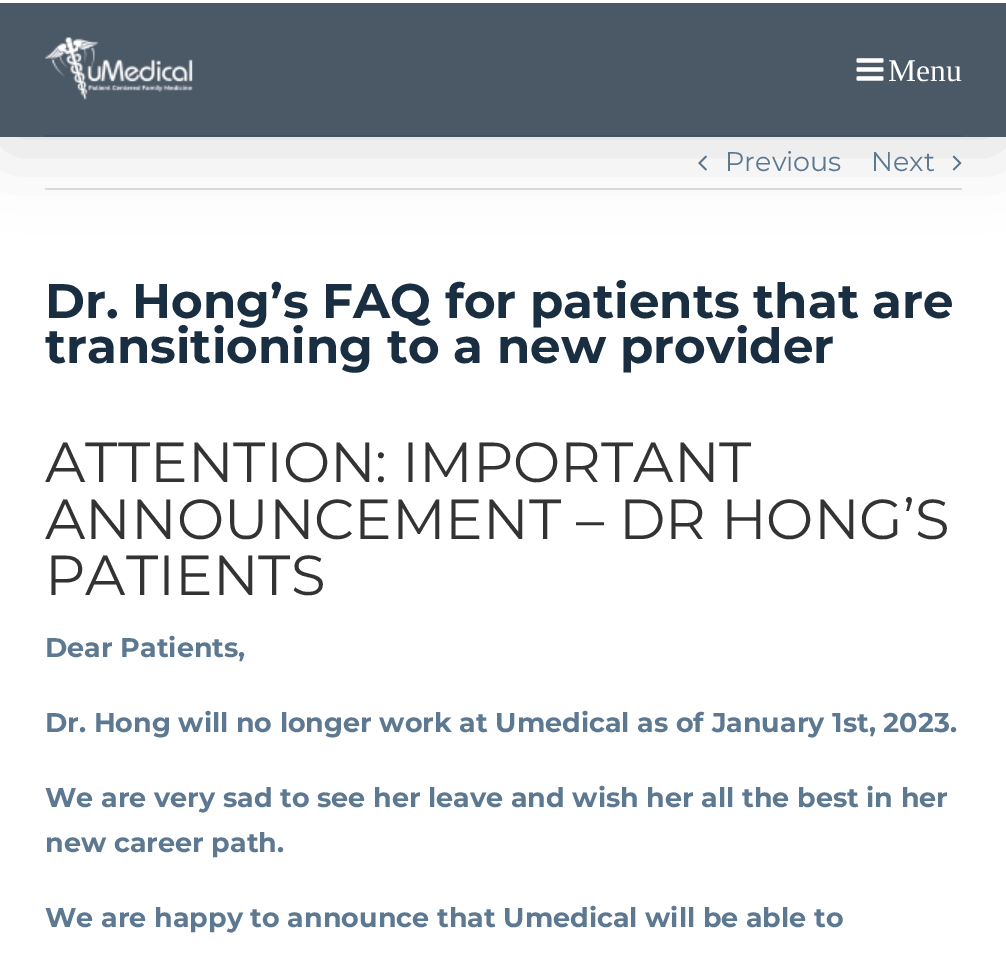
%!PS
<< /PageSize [1006 959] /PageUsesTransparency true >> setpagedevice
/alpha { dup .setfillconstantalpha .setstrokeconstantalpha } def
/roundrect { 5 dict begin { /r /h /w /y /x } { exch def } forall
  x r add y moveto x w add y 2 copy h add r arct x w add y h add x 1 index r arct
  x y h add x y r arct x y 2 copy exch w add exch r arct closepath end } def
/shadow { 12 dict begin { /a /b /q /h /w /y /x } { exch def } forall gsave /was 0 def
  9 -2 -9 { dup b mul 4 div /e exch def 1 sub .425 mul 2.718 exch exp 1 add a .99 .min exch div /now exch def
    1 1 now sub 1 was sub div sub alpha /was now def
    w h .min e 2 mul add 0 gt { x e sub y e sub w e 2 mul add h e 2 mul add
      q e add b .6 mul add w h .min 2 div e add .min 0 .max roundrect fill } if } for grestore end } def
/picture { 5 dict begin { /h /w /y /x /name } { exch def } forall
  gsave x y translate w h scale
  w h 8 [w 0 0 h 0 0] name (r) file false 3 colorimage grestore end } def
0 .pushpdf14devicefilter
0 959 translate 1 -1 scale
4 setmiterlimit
1 setgray
0 0 1006 959 rectfill
0.878 0.871 0.871 setrgbcolor
45 135 917 2 rectfill
45 188 917 2 rectfill
(img3.rgb) 698 155 9 16 picture
(img4.rgb) 952 155 10 16 picture
gsave
newpath 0 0 moveto 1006 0 lineto 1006 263 lineto 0 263 lineto closepath 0 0 moveto 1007 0 lineto 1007 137 lineto 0 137 lineto closepath eoclip newpath
0 setgray
3 18 1001 131 0 37.5 0.14 shadow
grestore
0.8 alpha
0.118 0.18 0.251 setrgbcolor
0 3 1006 134 rectfill
1 alpha
(img1.rgb) 45 37 148 63 picture
(img2.rgb) 856 58 28 23 picture
/LiberationSerif-Regular [31.5 0 0 -31.5 0 0] selectfont
1 setgray
888 81 moveto (Menu) show
/Montserrat-Regular [27 0 0 -27 0 0] selectfont
0.365 0.471 0.569 setrgbcolor
725 171 moveto (Previous) show
871 171 moveto (Next) show
/Montserrat-Bold [48.4 0 0 -48.4 0 0] selectfont
0.102 0.18 0.259 setrgbcolor
45 318 moveto (Dr. Hong’s FAQ for patients that are) show
45 363 moveto (transitioning to a new provider) show
/Montserrat-Regular [56.25 0 0 -56.25 0 0] selectfont
0.2 setgray
45 482 moveto (ATTENTION: IMPORTANT) show
45 539 moveto (ANNOUNCEMENT – DR HONG’S) show
45 595 moveto (PATIENTS) show
/Montserrat-Bold [27 0 0 -27 0 0] selectfont
0.365 0.471 0.569 setrgbcolor
45 657 moveto (Dear Patients,) show
45 732 moveto (Dr. Hong will no longer work at Umedical as of January 1st, 2023.) show
45 807 moveto (We are very sad to see her leave and wish her all the best in her) show
45 852 moveto (new career path.) show
45 927 moveto (We are happy to announce that Umedical will be able to) show
.poppdf14devicefilter showpage
